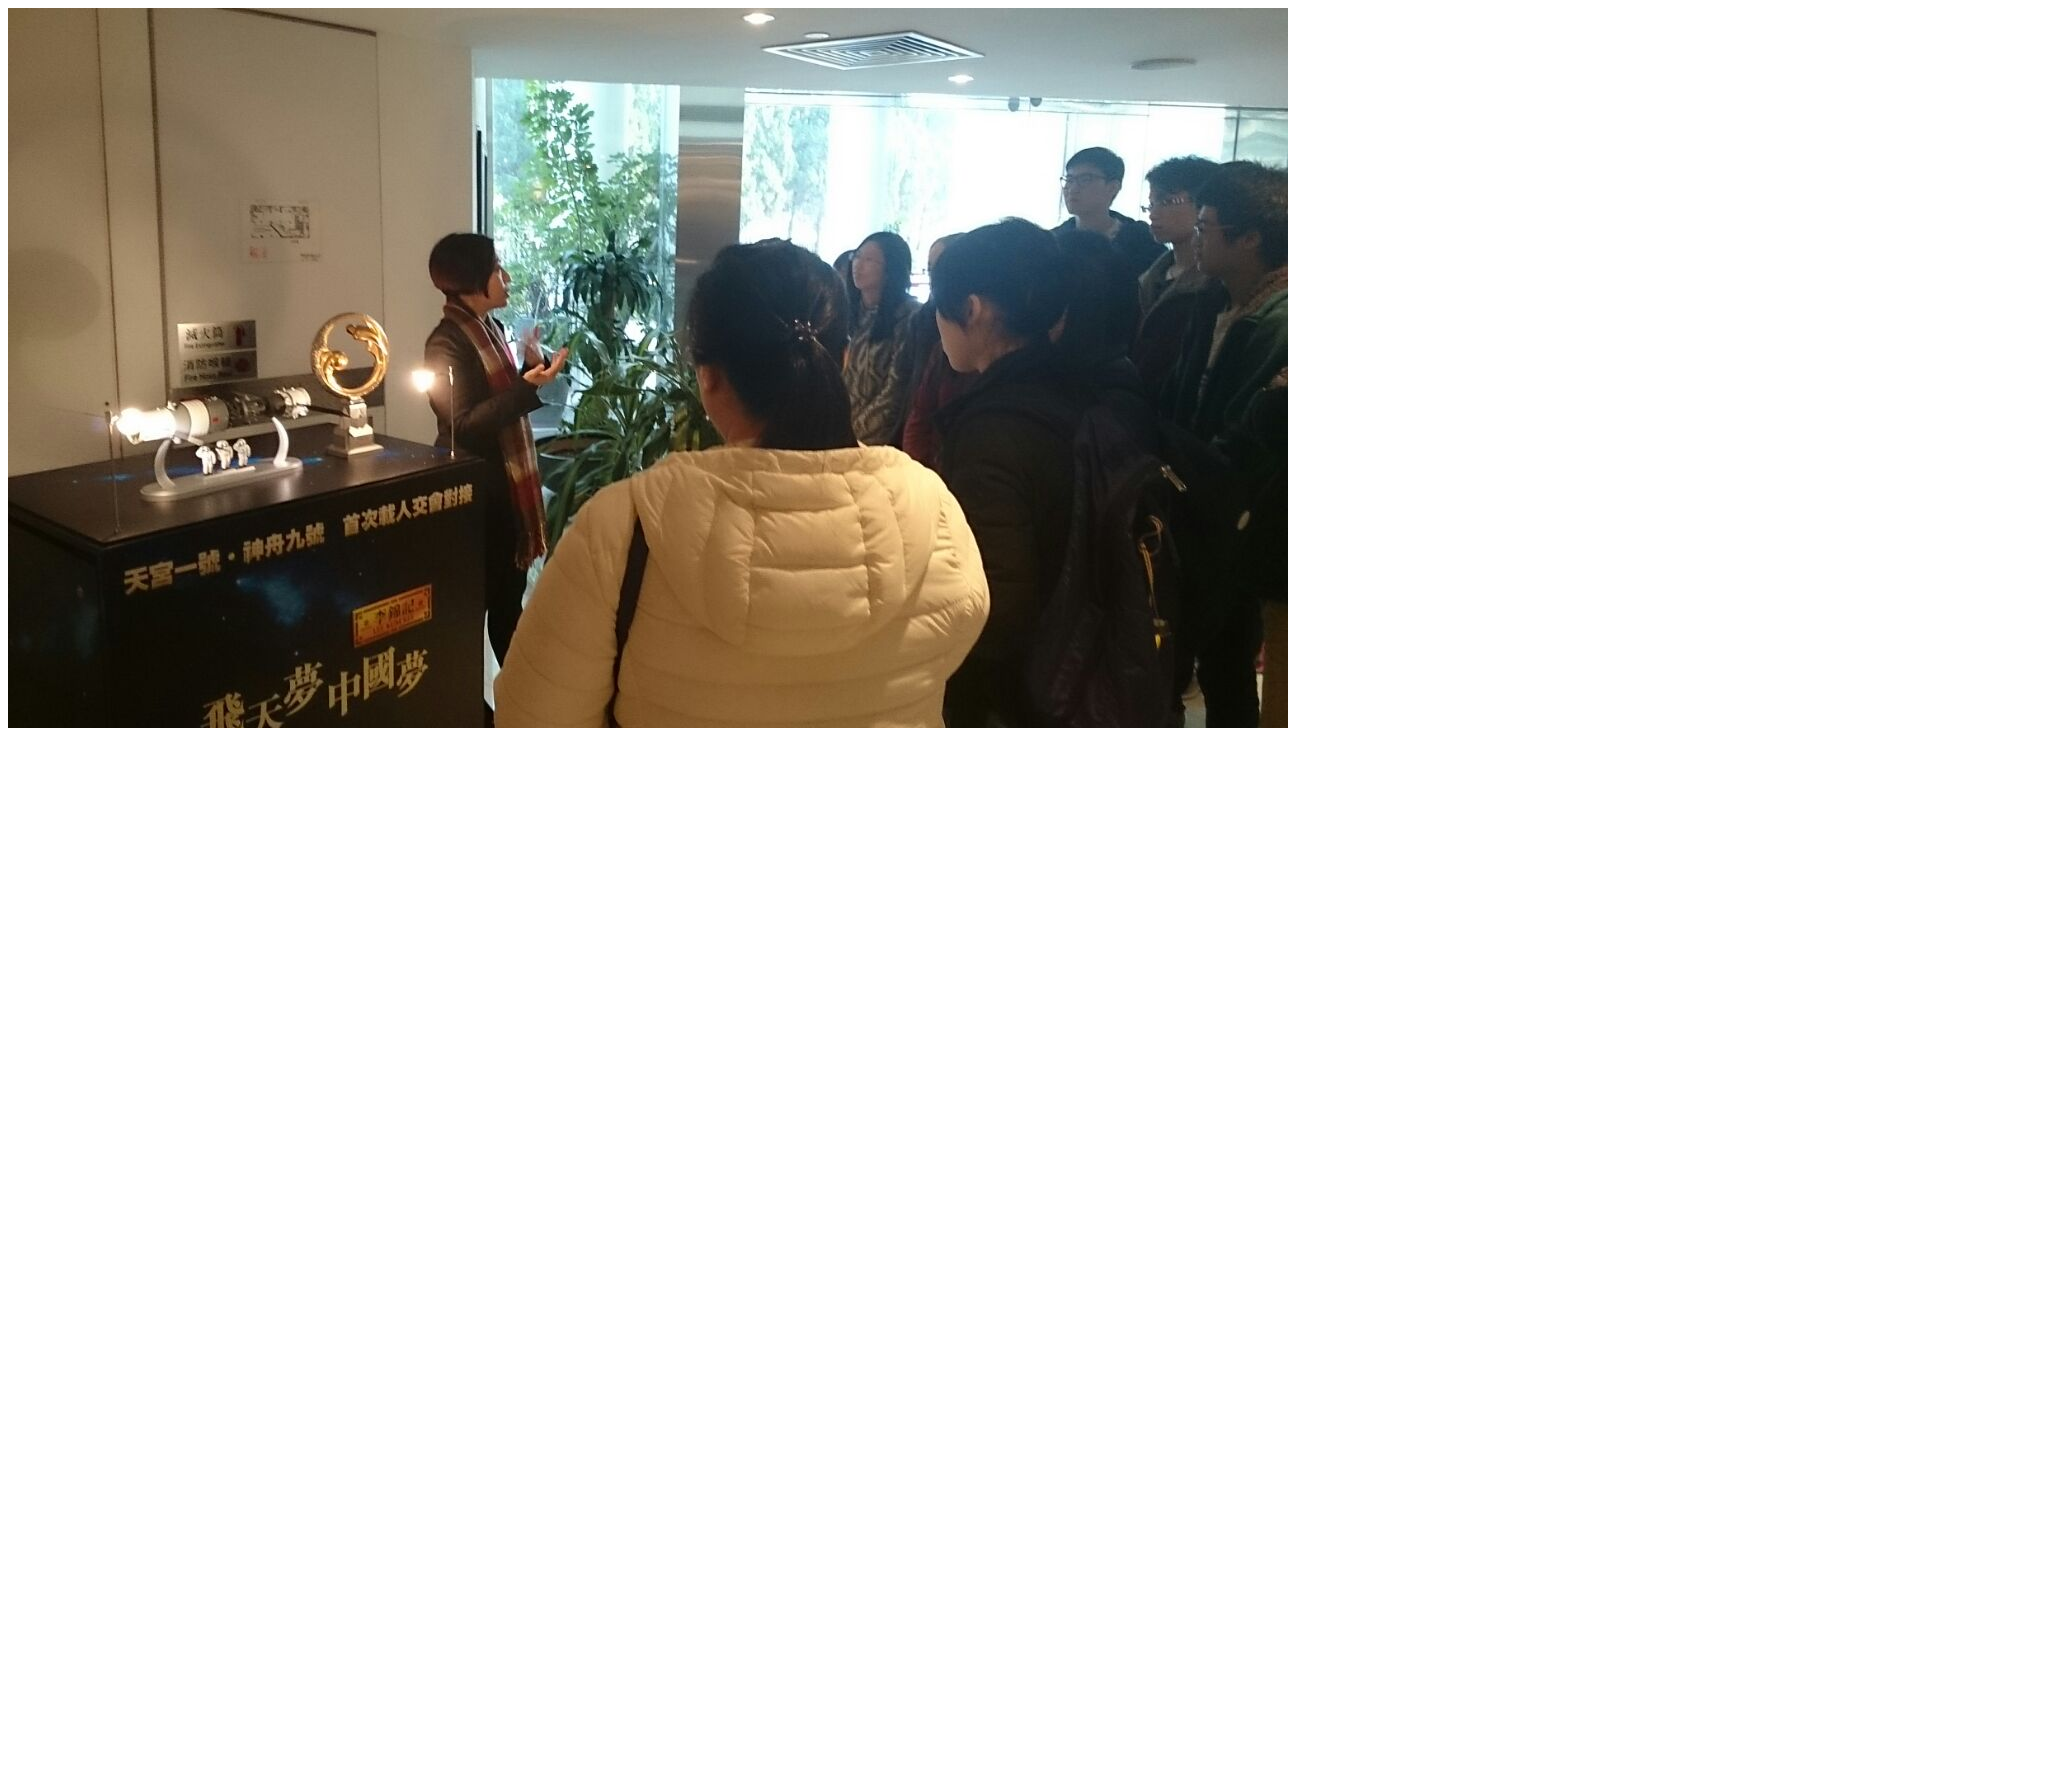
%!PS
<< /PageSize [2049 1780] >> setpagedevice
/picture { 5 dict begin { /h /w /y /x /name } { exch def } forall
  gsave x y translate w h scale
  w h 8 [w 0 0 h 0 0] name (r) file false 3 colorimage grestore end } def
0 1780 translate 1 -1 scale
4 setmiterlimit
1 setgray
0 0 2049 1780 rectfill
(img1.rgb) 8 8 1280 720 picture
showpage
